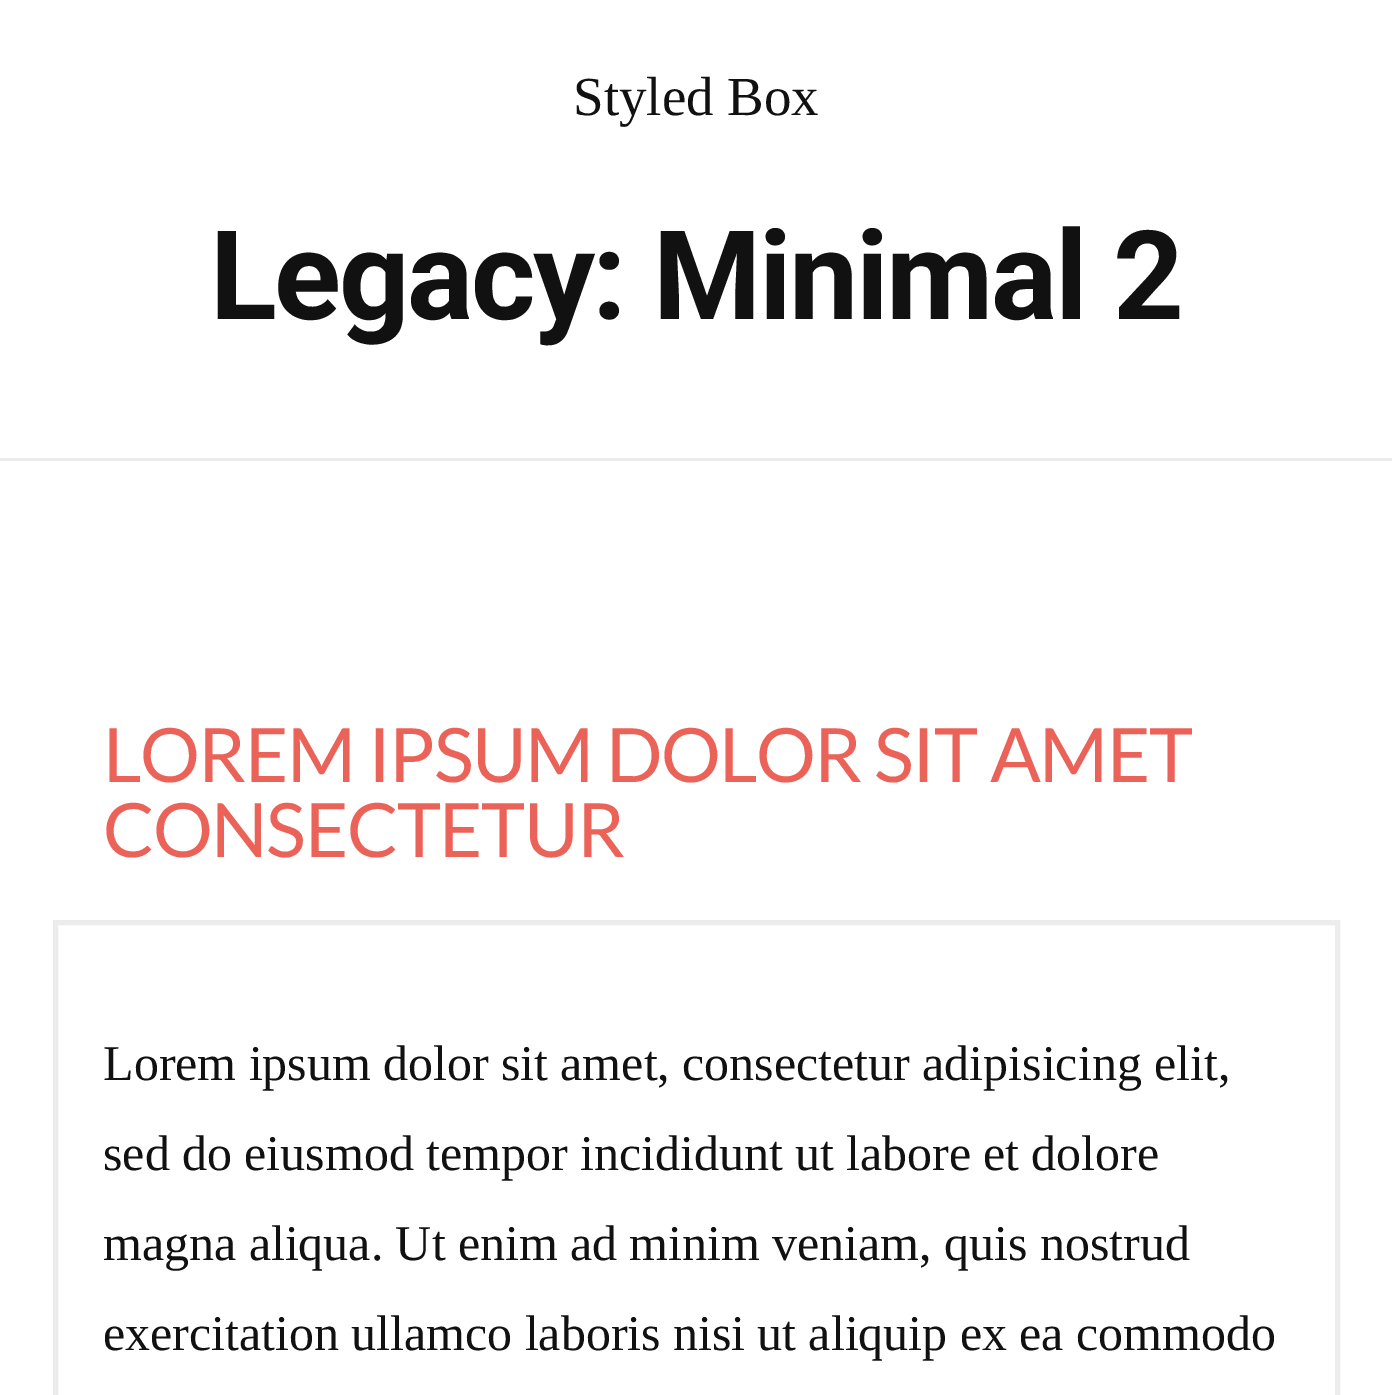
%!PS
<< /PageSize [1392 1395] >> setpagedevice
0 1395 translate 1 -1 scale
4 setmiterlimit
1 setgray
0 0 1392 1395 rectfill
0.922 setgray
0 458 1392 3 rectfill
/LiberationSerif-Regular [55 0 0 -55 0 0] selectfont
0.067 setgray
573 115 moveto (Styled Box) show
/Roboto-Bold [123.75 0 0 -123.75 0 0] selectfont
210 319 moveto -2.5 0 (Legacy: Minimal 2) ashow
/Lato-Regular [75 0 0 -75 0 0] selectfont
0.922 0.384 0.345 setrgbcolor
103 782 moveto -1.5 0 (LOREM IPSUM DOLOR SIT AMET) ashow
103 857 moveto -1.5 0 (CONSECTETUR) ashow
0.925 setgray
5 setlinewidth
55.5 922.5 1282 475 rectstroke
/LiberationSerif-Regular [50 0 0 -50 0 0] selectfont
0.067 setgray
103 1080 moveto -0.25 0 32 (Lorem ipsum dolor sit amet, consectetur adipisicing elit,) widthshow
103 1170 moveto -0.25 0 32 (sed do eiusmod tempor incididunt ut labore et dolore) widthshow
103 1260 moveto -0.25 0 32 (magna aliqua. Ut enim ad minim veniam, quis nostrud) widthshow
103 1350 moveto -0.25 0 32 (exercitation ullamco laboris nisi ut aliquip ex ea commodo) widthshow
showpage
